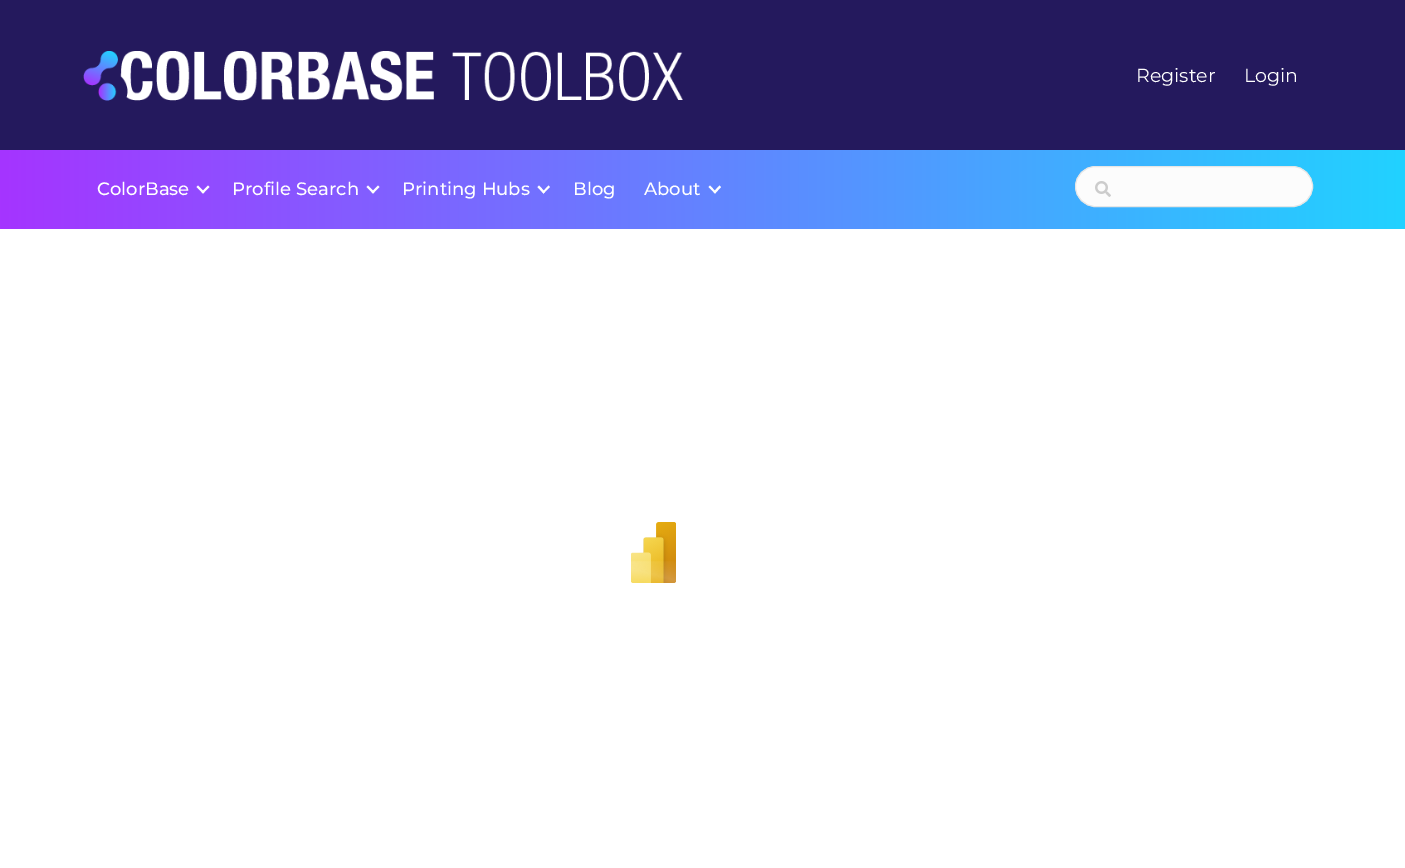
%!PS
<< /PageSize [1405 868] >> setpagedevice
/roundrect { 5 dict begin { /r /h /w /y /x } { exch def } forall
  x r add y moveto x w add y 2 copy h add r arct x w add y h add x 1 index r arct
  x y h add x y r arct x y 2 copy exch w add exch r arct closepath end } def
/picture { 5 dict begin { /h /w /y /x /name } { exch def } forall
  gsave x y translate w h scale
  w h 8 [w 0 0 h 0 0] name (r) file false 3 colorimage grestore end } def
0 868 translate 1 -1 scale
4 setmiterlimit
1 setgray
0 0 1405 868 rectfill
0.141 0.098 0.365 setrgbcolor
0 0 1405 150 rectfill
(img1.rgb) 83 51 600 50 picture
/Montserrat-Regular [19 0 0 -19 0 0] selectfont
1 setgray
1136 82 moveto (Register) show
1244 82 moveto (Login) show
gsave newpath 0 150 moveto 1405 150 lineto 1405 229 lineto 0 229 lineto closepath clip newpath
<< /ShadingType 2 /ColorSpace /DeviceRGB /Coords [0 190 1405 189] /Extend [true true] /Function << /FunctionType 2 /Domain [0 1] /C0 [0.647 0.204 1] /C1 [0.129 0.824 1] /N 1 >> >> shfill grestore
/Montserrat-Medium [18 0 0 -18 0 0] selectfont
97 195 moveto (ColorBase) show
newpath 208 185.5 moveto 209.5 187 lineto 203 193.5 lineto 201.5 192 lineto closepath fill
newpath 198 185.5 moveto 204.5 192 lineto 203 193.5 lineto 196.5 187 lineto closepath fill
232 195 moveto (Profile Search) show
newpath 378 185.5 moveto 379.5 187 lineto 373 193.5 lineto 371.5 192 lineto closepath fill
newpath 368 185.5 moveto 374.5 192 lineto 373 193.5 lineto 366.5 187 lineto closepath fill
402 195 moveto (Printing Hubs) show
newpath 548.5 185.5 moveto 550 187 lineto 543.5 193.5 lineto 542.5 192 lineto closepath fill
newpath 539 185.5 moveto 545 192 lineto 543.5 193.5 lineto 537.5 187 lineto closepath fill
573 195 moveto (Blog) show
644 195 moveto (About) show
newpath 719.5 185.5 moveto 721 187 lineto 715 193.5 lineto 713.5 192 lineto closepath fill
newpath 710 185.5 moveto 716 192 lineto 715 193.5 lineto 708.5 187 lineto closepath fill
0.988 setgray
1075.5 166.5 237 40 20 roundrect gsave fill grestore
0.902 setgray
stroke
(img2.rgb) 1095 181 16 16 picture
(img3.rgb) 631 522 45 61 picture
showpage
